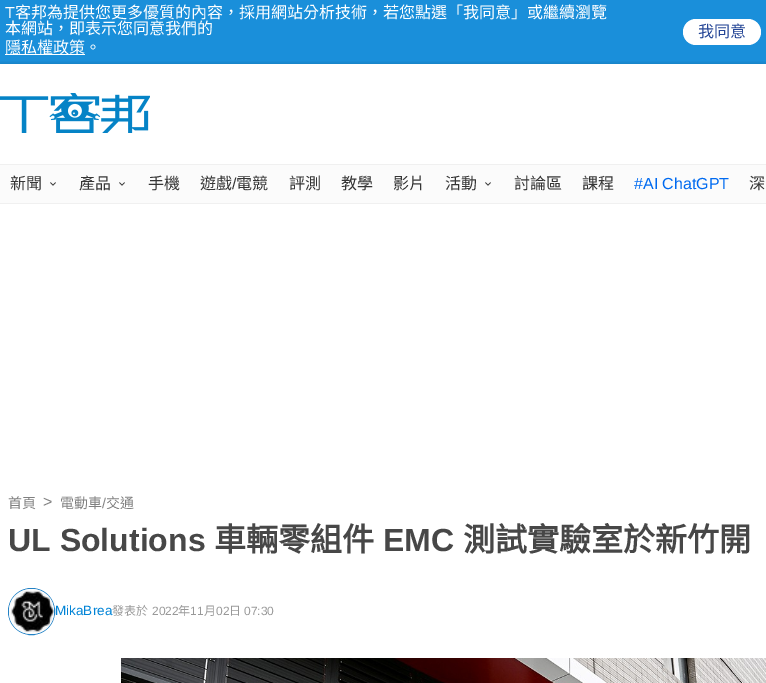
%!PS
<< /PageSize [766 683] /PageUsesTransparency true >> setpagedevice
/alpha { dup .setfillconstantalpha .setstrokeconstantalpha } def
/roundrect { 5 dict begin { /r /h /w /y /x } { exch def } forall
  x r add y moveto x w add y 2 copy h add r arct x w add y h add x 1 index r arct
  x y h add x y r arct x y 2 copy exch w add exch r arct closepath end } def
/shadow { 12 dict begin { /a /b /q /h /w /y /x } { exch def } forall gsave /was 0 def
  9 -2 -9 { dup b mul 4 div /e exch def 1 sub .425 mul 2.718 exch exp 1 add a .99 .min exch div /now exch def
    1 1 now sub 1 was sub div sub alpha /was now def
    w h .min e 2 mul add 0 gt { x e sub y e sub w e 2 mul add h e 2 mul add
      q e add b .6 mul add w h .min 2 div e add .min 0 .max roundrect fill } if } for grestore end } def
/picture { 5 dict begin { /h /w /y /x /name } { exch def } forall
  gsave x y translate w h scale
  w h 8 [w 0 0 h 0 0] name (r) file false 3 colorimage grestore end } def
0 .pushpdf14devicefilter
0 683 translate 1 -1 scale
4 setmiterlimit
1 setgray
0 0 766 683 rectfill
0.102 0.561 0.855 setrgbcolor
0 0 766 64 rectfill
/LiberationSans-Regular [16 0 0 -16 0 0] selectfont
1 setgray
5 18 moveto (T) show
/NotoSansCJKTC-Regular [16 0 0 -16 0 0] selectfont
15 18 moveto (客邦為提供您更多優質的內容，採用網站分析技術，若您點選「我同意」或繼續瀏覽) show
5 34 moveto (本網站，即表示您同意我們的) show
5 54 80 1 rectfill
5 53 moveto (隱私權政策。) show
683 19 78 26 13 roundrect fill
0.145 0.275 0.588 setrgbcolor
698 37 moveto (我同意) show
gsave
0 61 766 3 rectclip
0 setgray
0 64 766 100 0 2.5 0.15 shadow
grestore
(img1.rgb) 0 93 150 40 picture
0.984 setgray
0 165 766 38 rectfill
0.941 setgray
0 164 766 1 rectfill
0 203 766 1 rectfill
0.208 setgray
10 189 moveto (新聞) show
(img2.rgb) 50 182 6 4 picture
79 189 moveto (產品) show
(img2.rgb) 119 182 6 4 picture
148 189 moveto (手機) show
200 189 moveto (遊戲) show
/LiberationSans-Regular [16 0 0 -16 0 0] selectfont
232 189 moveto (/) show
/NotoSansCJKTC-Regular [16 0 0 -16 0 0] selectfont
236 189 moveto (電競) show
289 189 moveto (評測) show
341 189 moveto (教學) show
393 189 moveto (影片) show
445 189 moveto (活動) show
(img2.rgb) 485 182 6 4 picture
514 189 moveto (討論區) show
582 189 moveto (課程) show
/LiberationSans-Regular [16 0 0 -16 0 0] selectfont
0 0.416 0.941 setrgbcolor
634 189 moveto (#AI ChatGPT) show
/NotoSansCJKTC-Regular [16 0 0 -16 0 0] selectfont
0.208 setgray
749 189 moveto (深) show
/NotoSansCJKTC-Regular [14 0 0 -14 0 0] selectfont
0.502 setgray
8 508 moveto (首頁) show
/LiberationSans-Regular [16 0 0 -16 0 0] selectfont
43 507 moveto (>) show
/NotoSansCJKTC-Regular [14 0 0 -14 0 0] selectfont
60 508 moveto (電動車) show
/LiberationSans-Regular [14 0 0 -14 0 0] selectfont
102 508 moveto (/) show
/NotoSansCJKTC-Regular [14 0 0 -14 0 0] selectfont
106 508 moveto (交通) show
/LiberationSans-Bold [32 0 0 -32 0 0] selectfont
0.278 setgray
8 551 moveto (UL Solutions) show
/NotoSansCJKTC-Bold [32 0 0 -32 0 0] selectfont
214 551 moveto (車輛零組件) show
/LiberationSans-Bold [32 0 0 -32 0 0] selectfont
383 551 moveto (EMC) show
/NotoSansCJKTC-Bold [32 0 0 -32 0 0] selectfont
463 551 moveto (測試實驗室於新竹開) show
0.137 0.51 0.773 setrgbcolor
8.5 588.5 46 46 22.5 roundrect stroke
(img3.rgb) 9 589 45 45 picture
/LiberationSans-Regular [13.5 0 0 -13.5 0 0] selectfont
0 0.514 0.839 setrgbcolor
55 615 moveto (MikaBrea) show
/NotoSansCJKTC-Regular [12 0 0 -12 0 0] selectfont
0.6 setgray
112 615 moveto (發表於) show
/LiberationSans-Regular [12 0 0 -12 0 0] selectfont
152 615 moveto (2022) show
/NotoSansCJKTC-Regular [12 0 0 -12 0 0] selectfont
178 615 moveto (年) show
/LiberationSans-Regular [12 0 0 -12 0 0] selectfont
190 615 moveto (11) show
/NotoSansCJKTC-Regular [12 0 0 -12 0 0] selectfont
204 615 moveto (月) show
/LiberationSans-Regular [12 0 0 -12 0 0] selectfont
216 615 moveto (02) show
/NotoSansCJKTC-Regular [12 0 0 -12 0 0] selectfont
229 615 moveto (日) show
/LiberationSans-Regular [12 0 0 -12 0 0] selectfont
244 615 moveto (07:30) show
(img4.rgb) 121 658 645 25 picture
.poppdf14devicefilter showpage
